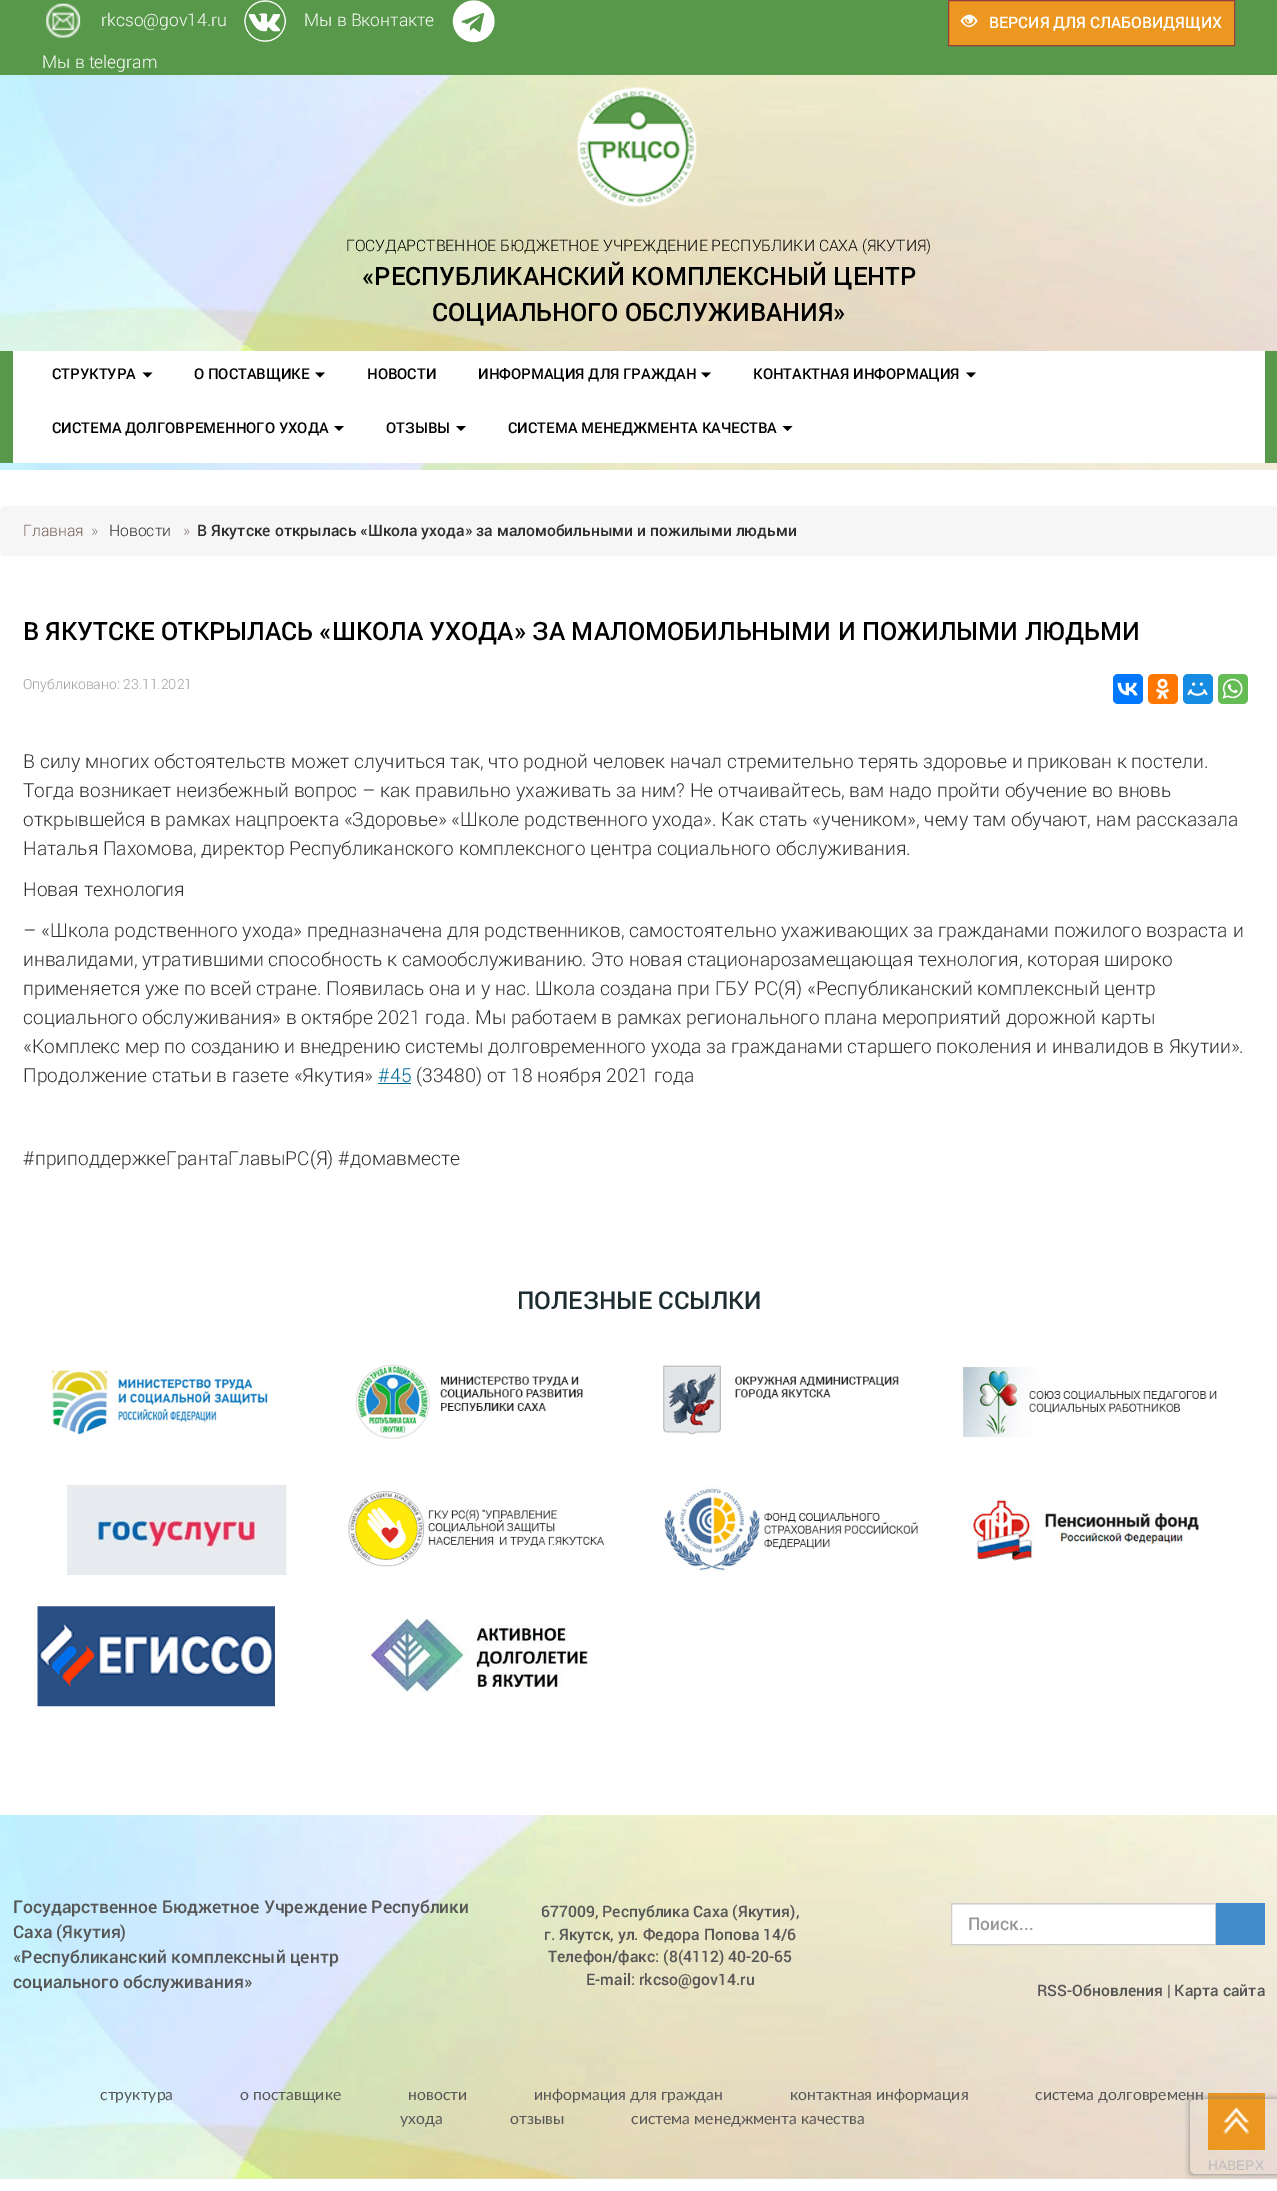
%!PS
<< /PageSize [1277 2191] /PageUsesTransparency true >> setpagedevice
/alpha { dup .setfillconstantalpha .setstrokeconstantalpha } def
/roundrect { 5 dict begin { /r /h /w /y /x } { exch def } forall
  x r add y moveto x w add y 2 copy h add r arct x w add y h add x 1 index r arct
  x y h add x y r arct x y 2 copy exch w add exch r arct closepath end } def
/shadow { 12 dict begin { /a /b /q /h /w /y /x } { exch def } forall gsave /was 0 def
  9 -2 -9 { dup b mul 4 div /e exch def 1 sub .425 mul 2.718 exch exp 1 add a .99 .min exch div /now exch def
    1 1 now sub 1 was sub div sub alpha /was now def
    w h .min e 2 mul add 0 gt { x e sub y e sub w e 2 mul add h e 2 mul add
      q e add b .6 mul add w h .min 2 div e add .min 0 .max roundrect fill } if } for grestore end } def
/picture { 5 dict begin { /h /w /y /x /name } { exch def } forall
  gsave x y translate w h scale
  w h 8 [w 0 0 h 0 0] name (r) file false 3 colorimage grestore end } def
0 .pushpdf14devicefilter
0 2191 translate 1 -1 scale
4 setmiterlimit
1 setgray
0 0 1277 2191 rectfill
(img1.rgb) 0 75 1277 395 picture
0.345 0.596 0.29 setrgbcolor
0 0 1277 75 rectfill
(img2.rgb) 46 3 35 35 picture
/Roboto-Light [17.5 0 0 -17.5 0 0] selectfont
1 setgray
101 26 moveto (rkcso@gov14.ru) show
(img3.rgb) 244 0 43 42 picture
304 26 moveto (Мы в Вконтакте) show
(img4.rgb) 452 0 43 43 picture
42 68 moveto (Мы в telegram) show
0.925 0.592 0.122 setrgbcolor
newpath 948.5 0.5 moveto 1234.5 0.5 lineto 1234.5 45.5 lineto 948.5 45.5 lineto closepath gsave fill grestore
0.576 0.243 0.255 setrgbcolor
stroke
(img5.rgb) 960 14 18 14 picture
/Roboto-Medium [15.75 0 0 -15.75 0 0] selectfont
1 setgray
989 28 moveto (ВЕРСИЯ ДЛЯ СЛАБОВИДЯЩИХ) show
(img6.rgb) 577 87 120 120 picture
/Roboto-Light [15.75 0 0 -15.75 0 0] selectfont
0 setgray
346 251 moveto (ГОСУДАРСТВЕННОЕ БЮДЖЕТНОЕ УЧРЕЖДЕНИЕ РЕСПУБЛИКИ САХА \(ЯКУТИЯ\)) show
/Roboto-Medium [25.2 0 0 -25.2 0 0] selectfont
362 285 moveto («РЕСПУБЛИКАНСКИЙ КОМПЛЕКСНЫЙ ЦЕНТР) show
432 321 moveto (СОЦИАЛЬНОГО ОБСЛУЖИВАНИЯ») show
0.345 0.596 0.29 setrgbcolor
0 351 1277 112 rectfill
1 setgray
13 351 1252 112 rectfill
/Roboto-Medium [14.9 0 0 -14.9 0 0] selectfont
0 setgray
52 379 moveto (СТРУКТУРА) show
newpath 142.5 372.5 moveto 152.5 372.5 lineto 147.5 377.5 lineto closepath fill
194 379 moveto (О ПОСТАВЩИКЕ) show
newpath 315 372.5 moveto 325 372.5 lineto 320 377.5 lineto closepath fill
367 379 moveto (НОВОСТИ) show
478 379 moveto (ИНФОРМАЦИЯ ДЛЯ ГРАЖДАН) show
newpath 701 372.5 moveto 711 372.5 lineto 706 377.5 lineto closepath fill
753 379 moveto (КОНТАКТНАЯ ИНФОРМАЦИЯ) show
newpath 966 372.5 moveto 976 372.5 lineto 971 377.5 lineto closepath fill
52 433 moveto (СИСТЕМА ДОЛГОВРЕМЕННОГО УХОДА) show
newpath 334 426 moveto 344 426 lineto 339 431 lineto closepath fill
386 433 moveto (ОТЗЫВЫ) show
newpath 456 426 moveto 466 426 lineto 461 431 lineto closepath fill
508 433 moveto (СИСТЕМА МЕНЕДЖМЕНТА КАЧЕСТВА) show
newpath 782.5 426 moveto 792.5 426 lineto 787.5 431 lineto closepath fill
0.965 setgray
0 506 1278 50 5 roundrect fill
/Roboto-Light [15.75 0 0 -15.75 0 0] selectfont
0.475 0.4 0.365 setrgbcolor
23 536 moveto (Главная) show
0.533 0.494 0.475 setrgbcolor
91 536 moveto (») show
0.192 0.188 0.188 setrgbcolor
109 536 moveto (Новости) show
0.533 0.494 0.475 setrgbcolor
183 536 moveto (») show
/Roboto-Medium [15.75 0 0 -15.75 0 0] selectfont
0.192 0.188 0.188 setrgbcolor
197 536 moveto (В Якутске открылась «Школа ухода» за маломобильными и пожилыми людьми) show
/Roboto-Medium [25.2 0 0 -25.2 0 0] selectfont
0 setgray
23 640 moveto (В ЯКУТСКЕ ОТКРЫЛАСЬ «ШКОЛА УХОДА» ЗА МАЛОМОБИЛЬНЫМИ И ПОЖИЛЫМИ ЛЮДЬМИ) show
/Roboto-Light [14 0 0 -14 0 0] selectfont
0.627 0.62 0.62 setrgbcolor
23 689 moveto (Опубликовано: 23.11.2021) show
0 0.467 1 setrgbcolor
1113 674 30 30 5 roundrect fill
(img7.rgb) 1117 682 21 14 picture
1 0.467 0 setrgbcolor
1148 674 30 30 5 roundrect fill
(img8.rgb) 1155 678 15 21 picture
0.086 0.553 0.886 setrgbcolor
1183 674 30 30 5 roundrect fill
(img9.rgb) 1187 682 21 14 picture
0.396 0.737 0.329 setrgbcolor
1218 674 30 30 5 roundrect fill
(img10.rgb) 1222 678 21 21 picture
/Roboto-Light [19.25 0 0 -19.25 0 0] selectfont
0.192 0.188 0.188 setrgbcolor
23 768 moveto (В силу многих обстоятельств может случиться так, что родной человек начал стремительно терять здоровье и прикован к постели.) show
23 797 moveto (Тогда возникает неизбежный вопрос – как правильно ухаживать за ним? Не отчаивайтесь, вам надо пройти обучение во вновь) show
23 826 moveto (открывшейся в рамках нацпроекта «Здоровье» «Школе родственного ухода». Как стать «учеником», чему там обучают, нам рассказала) show
23 855 moveto (Наталья Пахомова, директор Республиканского комплексного центра социального обслуживания.) show
23 896 moveto (Новая технология) show
23 937 moveto (– «Школа родственного ухода» предназначена для родственников, самостоятельно ухаживающих за гражданами пожилого возраста и) show
23 966 moveto (инвалидами, утратившими способность к самообслуживанию. Это новая стационарозамещающая технология, которая широко) show
23 995 moveto (применяется уже по всей стране. Появилась она и у нас. Школа создана при ГБУ РС\(Я\) «Республиканский комплексный центр) show
23 1024 moveto (социального обслуживания» в октябре 2021 года. Мы работаем в рамках регионального плана мероприятий дорожной карты) show
23 1053 moveto («Комплекс мер по созданию и внедрению системы долговременного ухода за гражданами старшего поколения и инвалидов в Якутии».) show
23 1082 moveto (Продолжение статьи в газете «Якутия») show
0 0.424 0.584 setrgbcolor
378 1082 moveto (#45) show
378 1083 33 1 rectfill
0.192 0.188 0.188 setrgbcolor
416 1082 moveto (\(33480\) от 18 ноября 2021 года) show
23 1165 moveto (#приподдержкеГрантаГлавыРС\(Я\) #домавместе) show
/Roboto-Medium [24.5 0 0 -24.5 0 0] selectfont
0.118 0.176 0.196 setrgbcolor
517 1309 moveto (ПОЛЕЗНЫЕ ССЫЛКИ) show
(img11.rgb) 50 1370 219 65 picture
(img12.rgb) 355 1364 228 75 picture
(img13.rgb) 663 1365 236 70 picture
(img14.rgb) 962 1366 255 72 picture
(img15.rgb) 67 1485 220 90 picture
(img16.rgb) 348 1491 257 76 picture
(img17.rgb) 664 1485 255 88 picture
(img18.rgb) 970 1498 229 63 picture
(img19.rgb) 37 1606 238 101 picture
(img20.rgb) 367 1618 221 76 picture
(img21.rgb) 0 1815 1277 364 picture
/Roboto-Medium [17.5 0 0 -17.5 0 0] selectfont
0.341 setgray
13 1913 moveto (Государственное Бюджетное Учреждение Республики) show
13 1938 moveto (Саха \(Якутия\)) show
13 1963 moveto («Республиканский комплексный центр) show
13 1988 moveto (социального обслуживания») show
/Roboto-Medium [15.75 0 0 -15.75 0 0] selectfont
541 1917 moveto (677009, Республика Саха \(Якутия\),) show
544 1940 moveto (г. Якутск, ул. Федора Попова 14/6) show
548 1962 moveto (Телефон/факс: \(8\(4112\) 40-20-65) show
586 1985 moveto (E-mail: rkcso@gov14.ru) show
1 setgray
952 1904 263 40 rectfill
0.925 setgray
953 1904 262 1 rectfill
0.8 setgray
951.5 1903.5 264 41 rectstroke
/Roboto-Medium [17.5 0 0 -17.5 0 0] selectfont
0.6 setgray
968 1930 moveto (Поиск...) show
0.259 0.545 0.792 setrgbcolor
1216 1903 49 42 rectfill
/Roboto-Medium [15.75 0 0 -15.75 0 0] selectfont
0.341 setgray
1037 1996 moveto (RSS-Обновления | Карта сайта) show
/Lato-Regular [15.75 0 0 -15.75 0 0] selectfont
100 2100 moveto (структура) show
240 2100 moveto (о поставщике) show
408 2100 moveto (новости) show
534 2100 moveto (информация для граждан) show
790 2100 moveto (контактная информация) show
1035 2100 moveto (система долговременн) show
400 2124 moveto (ухода) show
510 2124 moveto (отзывы) show
631 2124 moveto (система менеджмента качества) show
0.925 0.592 0.122 setrgbcolor
1208 2093 57 57 rectfill
(img22.rgb) 1223 2107 26 27 picture
/LiberationSans-Regular [13.75 0 0 -13.75 0 0] selectfont
0.733 setgray
1208 2170 moveto (НАВЕРХ) show
gsave
newpath 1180 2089 moveto 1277 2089 lineto 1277 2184 lineto 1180 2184 lineto closepath 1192.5 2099 moveto 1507.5 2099 lineto 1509 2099 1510 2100 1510 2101.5 curveto 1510 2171.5 lineto 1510 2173 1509 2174 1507.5 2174 curveto 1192.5 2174 lineto 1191 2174 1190 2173 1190 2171.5 curveto 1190 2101.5 lineto 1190 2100 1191 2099 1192.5 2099 curveto closepath eoclip newpath
0.502 setgray
1190 2099 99 75 2.5 3 1 shadow
grestore
.poppdf14devicefilter showpage
